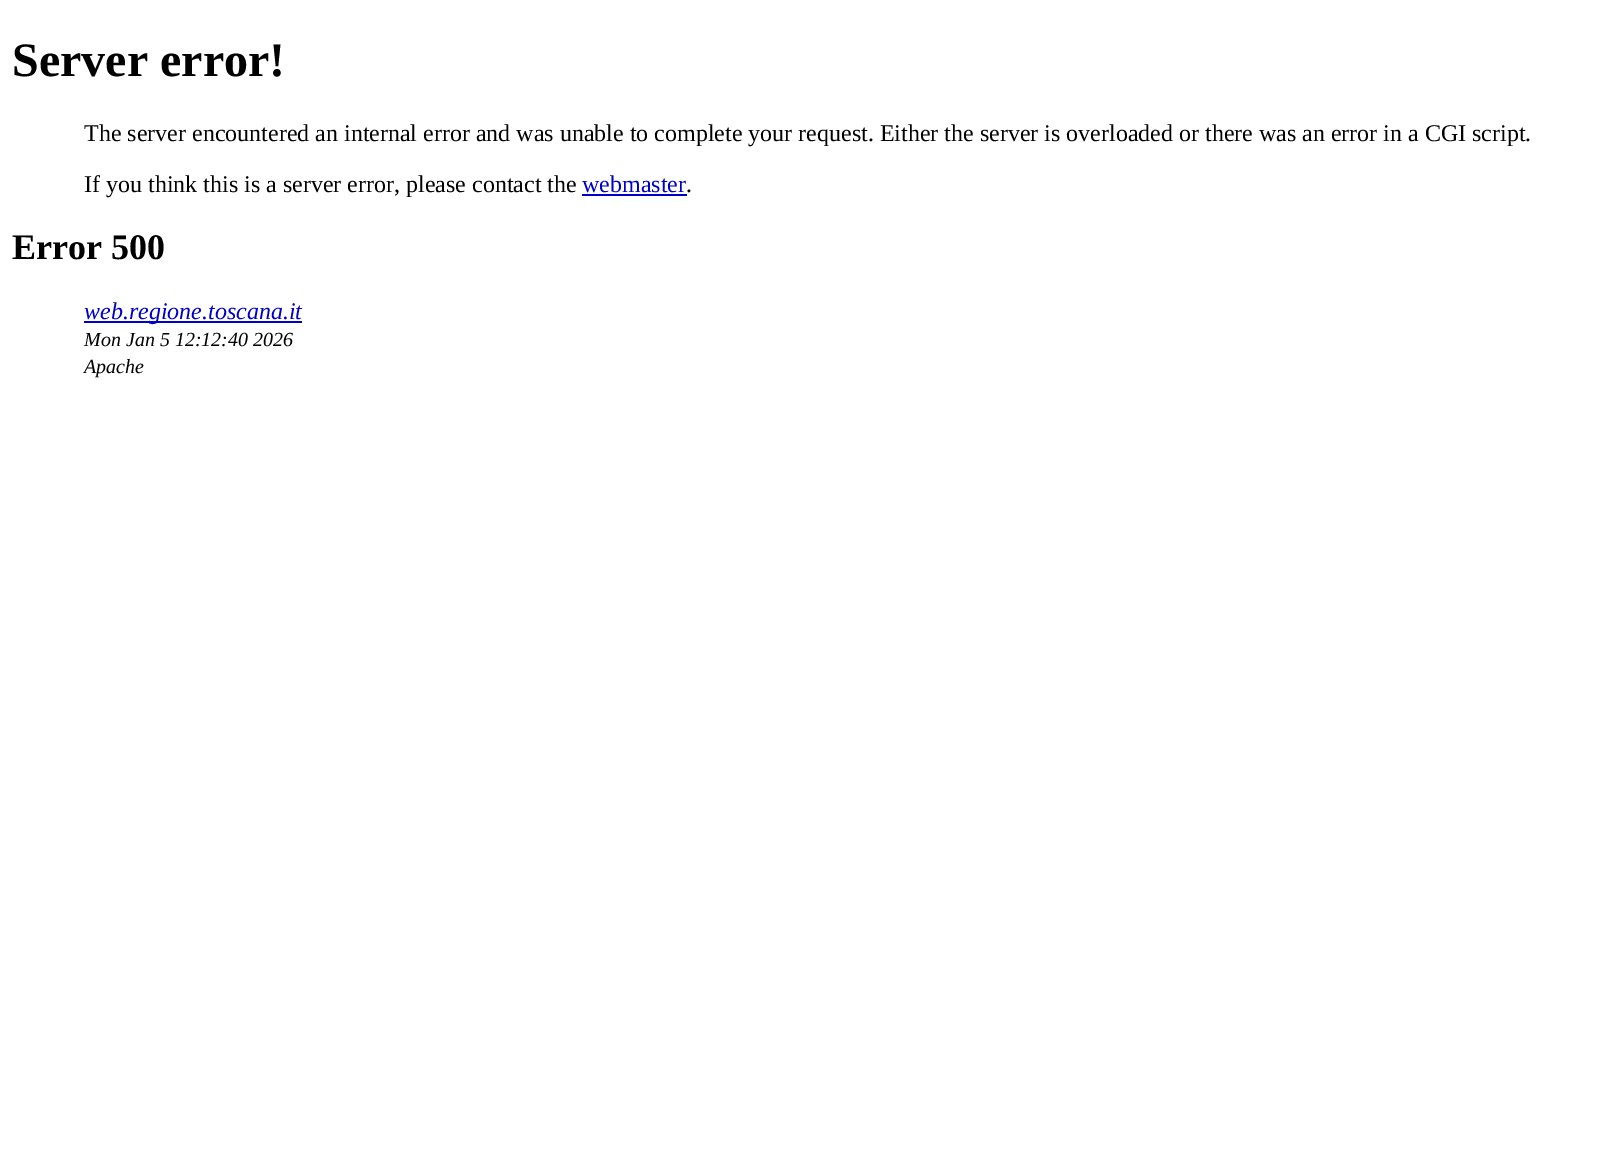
%!PS
<< /PageSize [1605 1170] >> setpagedevice
0 1170 translate 1 -1 scale
4 setmiterlimit
1 setgray
0 0 1605 1170 rectfill
/LiberationSerif-Bold [48 0 0 -48 0 0] selectfont
0 setgray
12 76 moveto (Server error!) show
/LiberationSerif-Regular [24 0 0 -24 0 0] selectfont
84 141 moveto (The server encountered an internal error and was unable to complete your request. Either the server is overloaded or there was an error in a CGI script.) show
84 192 moveto (If you think this is a server error, please contact the) show
0 0 0.8 setrgbcolor
582 192 moveto (webmaster) show
582 194 105 2 rectfill
0 setgray
686 192 moveto (.) show
/LiberationSerif-Bold [36 0 0 -36 0 0] selectfont
12 259 moveto (Error 500) show
0 0 0.8 setrgbcolor
84 321 218 2 rectfill
/LiberationSerif-Italic [24 0 0 -24 0 0] selectfont
84 319 moveto (web.regione.toscana.it) show
/LiberationSerif-Italic [20 0 0 -20 0 0] selectfont
0 setgray
84 346 moveto (Mon Jan 5 12:12:40 2026) show
84 373 moveto (Apache) show
showpage
